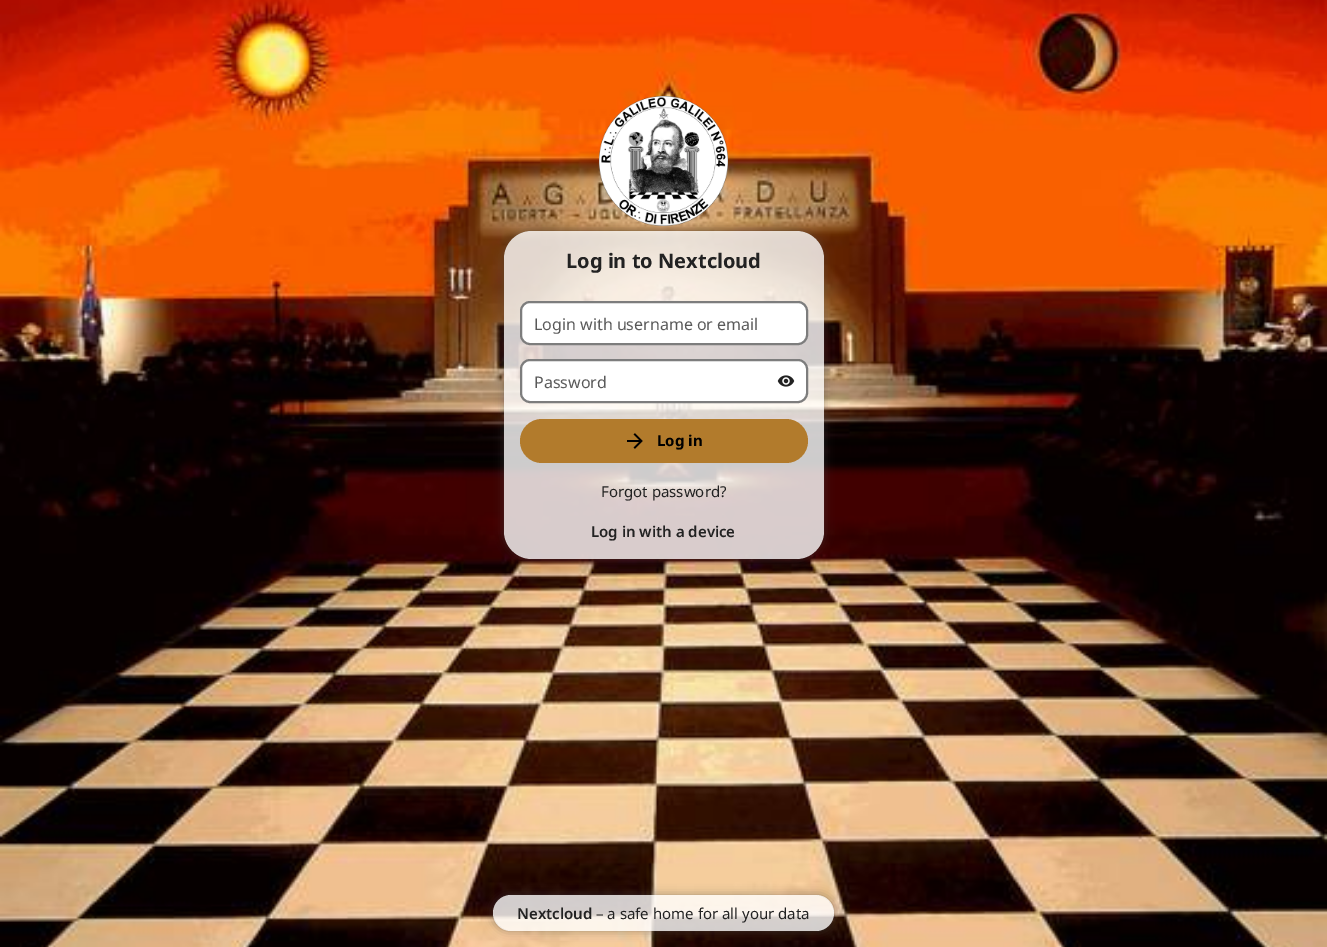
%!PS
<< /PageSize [1327 947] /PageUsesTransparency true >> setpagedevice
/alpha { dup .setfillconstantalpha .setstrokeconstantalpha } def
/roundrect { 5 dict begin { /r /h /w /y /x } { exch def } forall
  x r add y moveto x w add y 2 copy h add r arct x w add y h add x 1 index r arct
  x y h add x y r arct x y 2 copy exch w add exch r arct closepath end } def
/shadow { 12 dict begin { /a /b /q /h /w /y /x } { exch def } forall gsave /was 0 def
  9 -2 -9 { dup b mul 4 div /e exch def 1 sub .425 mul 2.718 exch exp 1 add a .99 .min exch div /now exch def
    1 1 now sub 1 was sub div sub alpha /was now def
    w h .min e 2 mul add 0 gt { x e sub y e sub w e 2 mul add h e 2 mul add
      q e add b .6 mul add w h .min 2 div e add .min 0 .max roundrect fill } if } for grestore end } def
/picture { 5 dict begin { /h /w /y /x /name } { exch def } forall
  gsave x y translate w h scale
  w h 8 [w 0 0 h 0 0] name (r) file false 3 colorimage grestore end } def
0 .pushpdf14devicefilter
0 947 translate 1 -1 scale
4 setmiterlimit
1 setgray
0 0 1327 947 rectfill
(img1.rgb) 0 0 1327 947 picture
(img2.rgb) 599 96 129 130 picture
gsave
newpath 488 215 moveto 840 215 lineto 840 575 lineto 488 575 lineto closepath 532 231 moveto 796 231 lineto 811.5 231 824 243.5 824 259 curveto 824 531 lineto 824 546.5 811.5 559 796 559 curveto 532 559 lineto 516.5 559 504 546.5 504 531 curveto 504 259 lineto 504 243.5 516.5 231 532 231 curveto closepath eoclip newpath
0.302 setgray
504 231 320 328 28 5 0.5 shadow
grestore
0.8 alpha
504 231 320 328 28 roundrect fill
/NotoSans-Bold [20 0 0 -20 0 0] selectfont
1 alpha
0.133 setgray
566 268 moveto (Log in to Nextcloud) show
1 setgray
521 302 286 42 9 roundrect gsave fill grestore
0.49 setgray
2 setlinewidth
stroke
/NotoSans-Regular [16 0 0 -16 0 0] selectfont
0.349 setgray
534 330 moveto (Login with username or email) show
1 setgray
521 360 286 42 9 roundrect gsave fill grestore
0.49 setgray
stroke
0.349 setgray
534 388 moveto (Password) show
(img3.rgb) 777 375 18 12 picture
0.698 0.482 0.173 setrgbcolor
520 419 288 44 22 roundrect fill
(img4.rgb) 627 433 16 16 picture
/NotoSans-Bold [15 0 0 -15 0 0] selectfont
0 setgray
657 446 moveto (Log in) show
/NotoSans-Regular [15 0 0 -15 0 0] selectfont
0.133 setgray
601 497 moveto (Forgot password?) show
/NotoSans-SemiBold [15 0 0 -15 0 0] selectfont
591 537 moveto (Log in with a device) show
gsave
newpath 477 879 moveto 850 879 lineto 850 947 lineto 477 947 lineto closepath 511 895 moveto 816 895 lineto 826 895 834 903 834 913 curveto 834 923 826 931 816 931 curveto 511 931 lineto 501 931 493 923 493 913 curveto 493 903 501 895 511 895 curveto closepath eoclip newpath
0.302 setgray
493 895 341 36 18 5 0.5 shadow
grestore
0.8 alpha
1 setgray
493 895 341 36 18 roundrect fill
1 alpha
0.133 setgray
517 919 moveto (Nextcloud) show
/NotoSans-Regular [15 0 0 -15 0 0] selectfont
596 919 moveto (– a safe home for all your data) show
.poppdf14devicefilter showpage
